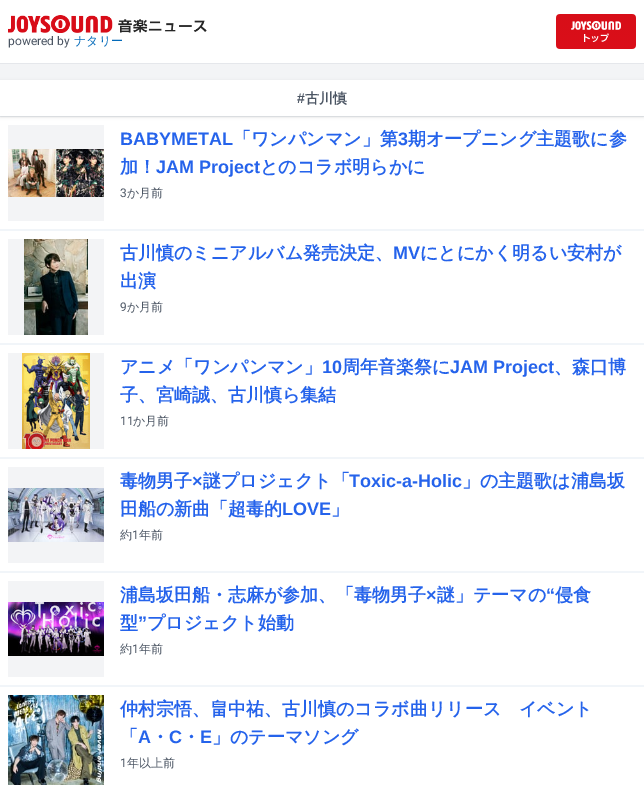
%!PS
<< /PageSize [644 785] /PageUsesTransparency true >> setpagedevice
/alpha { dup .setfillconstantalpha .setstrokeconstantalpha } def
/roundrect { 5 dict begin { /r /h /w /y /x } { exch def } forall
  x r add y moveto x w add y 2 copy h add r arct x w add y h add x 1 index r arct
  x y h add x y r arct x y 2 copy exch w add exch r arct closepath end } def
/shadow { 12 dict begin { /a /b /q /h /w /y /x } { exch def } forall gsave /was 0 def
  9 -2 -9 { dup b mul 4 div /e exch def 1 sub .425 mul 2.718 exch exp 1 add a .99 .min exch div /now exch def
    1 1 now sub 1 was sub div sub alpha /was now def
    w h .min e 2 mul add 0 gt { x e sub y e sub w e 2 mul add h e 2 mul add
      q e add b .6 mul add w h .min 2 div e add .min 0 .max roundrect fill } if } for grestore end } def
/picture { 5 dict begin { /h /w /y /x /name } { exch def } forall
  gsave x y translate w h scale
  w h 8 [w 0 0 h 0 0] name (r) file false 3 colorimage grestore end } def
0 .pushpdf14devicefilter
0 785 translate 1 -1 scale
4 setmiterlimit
1 setgray
0 0 644 785 rectfill
0.898 0.906 0.922 setrgbcolor
0 63 644 1 rectfill
(img1.rgb) 8 15 199 18 picture
/Roboto-Regular [12 0 0 -12 0 0] selectfont
0.294 0.333 0.388 setrgbcolor
8 45 moveto (powered by) show
/WenQuanYiZenHei-Medium [12 0 0 -12 0 0] selectfont
0.012 0.416 0.725 setrgbcolor
74 45 moveto (ナタリー) show
(img2.rgb) 556 14 80 35 picture
0.953 0.957 0.965 setrgbcolor
0 64 644 16 rectfill
0.945 0.961 0.976 setrgbcolor
0 116 644 1 rectfill
0 setgray
1 82 642 34 0 1 0.1 shadow
0 81 644 36 0 1.5 0.1 shadow
1 setgray
0 80 644 36 rectfill
/LiberationSans-Bold [14 0 0 -14 0 0] selectfont
0.294 0.333 0.388 setrgbcolor
297 103 moveto (#) show
/WenQuanYiZenHei-Bold [14 0 0 -14 0 0] selectfont
305 103 moveto (古川慎) show
0.945 0.961 0.976 setrgbcolor
0 229 644 2 rectfill
0.953 0.957 0.965 setrgbcolor
8 125 96 96 rectfill
(img3.rgb) 8 149 96 48 picture
/LiberationSans-Bold [18 0 0 -18 0 0] selectfont
0.145 0.388 0.922 setrgbcolor
120 145 moveto (BABYMETAL) show
/WenQuanYiZenHei-Bold [18 0 0 -18 0 0] selectfont
233 145 moveto (「ワンパンマン」第) show
/LiberationSans-Bold [18 0 0 -18 0 0] selectfont
398 145 moveto (3) show
/WenQuanYiZenHei-Bold [18 0 0 -18 0 0] selectfont
408 145 moveto (期オープニング主題歌に参) show
120 173 moveto (加！) show
/LiberationSans-Bold [18 0 0 -18 0 0] selectfont
156 173 moveto (JAM Project) show
/WenQuanYiZenHei-Bold [18 0 0 -18 0 0] selectfont
260 173 moveto (とのコラボ明らかに) show
/Roboto-Regular [12 0 0 -12 0 0] selectfont
0.294 0.333 0.388 setrgbcolor
120 197 moveto (3) show
/WenQuanYiZenHei-Medium [12 0 0 -12 0 0] selectfont
127 197 moveto (か月前) show
0.945 0.961 0.976 setrgbcolor
0 343 644 2 rectfill
0.953 0.957 0.965 setrgbcolor
8 239 96 96 rectfill
(img4.rgb) 24 239 64 96 picture
/WenQuanYiZenHei-Bold [18 0 0 -18 0 0] selectfont
0.145 0.388 0.922 setrgbcolor
120 259 moveto (古川慎のミニアルバム発売決定、) show
/LiberationSans-Bold [18 0 0 -18 0 0] selectfont
393 259 moveto (MV) show
/WenQuanYiZenHei-Bold [18 0 0 -18 0 0] selectfont
420 259 moveto (にとにかく明るい安村が) show
120 287 moveto (出演) show
/Roboto-Regular [12 0 0 -12 0 0] selectfont
0.294 0.333 0.388 setrgbcolor
120 311 moveto (9) show
/WenQuanYiZenHei-Medium [12 0 0 -12 0 0] selectfont
127 311 moveto (か月前) show
0.945 0.961 0.976 setrgbcolor
0 457 644 2 rectfill
0.953 0.957 0.965 setrgbcolor
8 353 96 96 rectfill
(img5.rgb) 22 353 68 96 picture
/WenQuanYiZenHei-Bold [18 0 0 -18 0 0] selectfont
0.145 0.388 0.922 setrgbcolor
120 373 moveto (アニメ「ワンパンマン」) show
/LiberationSans-Bold [18 0 0 -18 0 0] selectfont
322 373 moveto (10) show
/WenQuanYiZenHei-Bold [18 0 0 -18 0 0] selectfont
342 373 moveto (周年音楽祭に) show
/LiberationSans-Bold [18 0 0 -18 0 0] selectfont
450 373 moveto (JAM Project) show
/WenQuanYiZenHei-Bold [18 0 0 -18 0 0] selectfont
554 373 moveto (、森口博) show
120 401 moveto (子、宮崎誠、古川慎ら集結) show
/Roboto-Regular [12 0 0 -12 0 0] selectfont
0.294 0.333 0.388 setrgbcolor
120 425 moveto (11) show
/WenQuanYiZenHei-Medium [12 0 0 -12 0 0] selectfont
133 425 moveto (か月前) show
0.945 0.961 0.976 setrgbcolor
0 571 644 2 rectfill
0.953 0.957 0.965 setrgbcolor
8 467 96 96 rectfill
(img6.rgb) 8 488 96 54 picture
/WenQuanYiZenHei-Bold [18 0 0 -18 0 0] selectfont
0.145 0.388 0.922 setrgbcolor
120 487 moveto (毒物男子) show
/LiberationSans-Bold [18 0 0 -18 0 0] selectfont
192 487 moveto (×) show
/WenQuanYiZenHei-Bold [18 0 0 -18 0 0] selectfont
203 487 moveto (謎プロジェクト「) show
/LiberationSans-Bold [18 0 0 -18 0 0] selectfont
349 487 moveto (Toxic-a-Holic) show
/WenQuanYiZenHei-Bold [18 0 0 -18 0 0] selectfont
462 487 moveto (」の主題歌は浦島坂) show
120 515 moveto (田船の新曲「超毒的) show
/LiberationSans-Bold [18 0 0 -18 0 0] selectfont
282 515 moveto (LOVE) show
/WenQuanYiZenHei-Bold [18 0 0 -18 0 0] selectfont
331 515 moveto (」) show
/WenQuanYiZenHei-Medium [12 0 0 -12 0 0] selectfont
0.294 0.333 0.388 setrgbcolor
120 539 moveto (約) show
/Roboto-Regular [12 0 0 -12 0 0] selectfont
132 539 moveto (1) show
/WenQuanYiZenHei-Medium [12 0 0 -12 0 0] selectfont
139 539 moveto (年前) show
0.945 0.961 0.976 setrgbcolor
0 685 644 2 rectfill
0.953 0.957 0.965 setrgbcolor
8 581 96 96 rectfill
(img7.rgb) 8 602 96 54 picture
/WenQuanYiZenHei-Bold [18 0 0 -18 0 0] selectfont
0.145 0.388 0.922 setrgbcolor
120 601 moveto (浦島坂田船・志麻が参加、「毒物男子) show
/LiberationSans-Bold [18 0 0 -18 0 0] selectfont
426 601 moveto (×) show
/WenQuanYiZenHei-Bold [18 0 0 -18 0 0] selectfont
437 601 moveto (謎」テーマの) show
/LiberationSans-Bold [18 0 0 -18 0 0] selectfont
546 601 moveto (“) show
/WenQuanYiZenHei-Bold [18 0 0 -18 0 0] selectfont
555 601 moveto (侵食) show
120 629 moveto (型) show
/LiberationSans-Bold [18 0 0 -18 0 0] selectfont
138 629 moveto (”) show
/WenQuanYiZenHei-Bold [18 0 0 -18 0 0] selectfont
147 629 moveto (プロジェクト始動) show
/WenQuanYiZenHei-Medium [12 0 0 -12 0 0] selectfont
0.294 0.333 0.388 setrgbcolor
120 653 moveto (約) show
/Roboto-Regular [12 0 0 -12 0 0] selectfont
132 653 moveto (1) show
/WenQuanYiZenHei-Medium [12 0 0 -12 0 0] selectfont
139 653 moveto (年前) show
(img8.rgb) 8 695 96 90 picture
/WenQuanYiZenHei-Bold [18 0 0 -18 0 0] selectfont
0.145 0.388 0.922 setrgbcolor
120 715 moveto (仲村宗悟、畠中祐、古川慎のコラボ曲リリース　イベント) show
120 743 moveto (「) show
/LiberationSans-Bold [18 0 0 -18 0 0] selectfont
138 743 moveto (A) show
/WenQuanYiZenHei-Bold [18 0 0 -18 0 0] selectfont
151 743 moveto (・) show
/LiberationSans-Bold [18 0 0 -18 0 0] selectfont
169 743 moveto (C) show
/WenQuanYiZenHei-Bold [18 0 0 -18 0 0] selectfont
182 743 moveto (・) show
/LiberationSans-Bold [18 0 0 -18 0 0] selectfont
200 743 moveto (E) show
/WenQuanYiZenHei-Bold [18 0 0 -18 0 0] selectfont
212 743 moveto (」のテーマソング) show
/Roboto-Regular [12 0 0 -12 0 0] selectfont
0.294 0.333 0.388 setrgbcolor
120 767 moveto (1) show
/WenQuanYiZenHei-Medium [12 0 0 -12 0 0] selectfont
127 767 moveto (年以上前) show
.poppdf14devicefilter showpage
